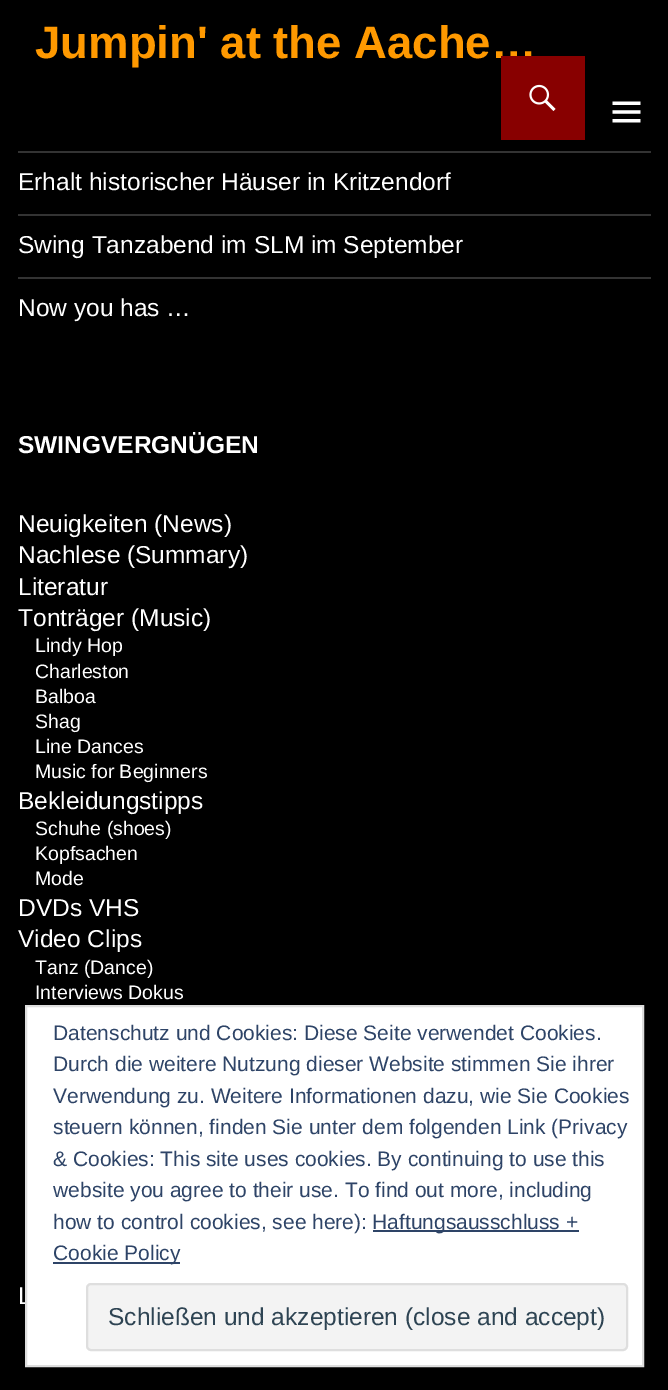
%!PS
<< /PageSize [668 1390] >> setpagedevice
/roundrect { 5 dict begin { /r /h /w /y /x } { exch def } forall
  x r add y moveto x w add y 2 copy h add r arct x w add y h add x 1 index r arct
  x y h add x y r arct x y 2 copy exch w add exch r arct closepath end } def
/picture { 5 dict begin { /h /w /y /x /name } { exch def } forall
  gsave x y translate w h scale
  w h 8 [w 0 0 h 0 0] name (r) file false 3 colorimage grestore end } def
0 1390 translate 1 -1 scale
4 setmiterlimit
0 setgray
0 0 668 1390 rectfill
/LiberationSans-Bold [45.5 0 0 -45.5 0 0] selectfont
1 0.6 0 setrgbcolor
35 58 moveto (Jumpin' at the Aache…) show
0.533 0 0 setrgbcolor
501 56 84 84 rectfill
(img1.rgb) 529 84 27 27 picture
(img2.rgb) 612 101 29 22 picture
0.2 setgray
18 151 633 2 rectfill
/LiberationSans-Regular [24.5 0 0 -24.5 0 0] selectfont
1 setgray
18 190 moveto (Erhalt historischer Häuser in Kritzendorf) show
0.2 setgray
18 214 633 2 rectfill
1 setgray
18 253 moveto (Swing Tanzabend im SLM im September) show
0.2 setgray
18 277 633 2 rectfill
1 setgray
18 316 moveto (Now you has …) show
/LiberationSans-Bold [24.5 0 0 -24.5 0 0] selectfont
18 453 moveto (SWINGVERGNÜGEN) show
/LiberationSans-Regular [24.5 0 0 -24.5 0 0] selectfont
18 532 moveto (Neuigkeiten \(News\)) show
18 563 moveto (Nachlese \(Summary\)) show
18 595 moveto (Literatur) show
18 626 moveto (Tonträger \(Music\)) show
/LiberationSans-Regular [19.5 0 0 -19.5 0 0] selectfont
35 652 moveto (Lindy Hop) show
35 678 moveto (Charleston) show
35 703 moveto (Balboa) show
35 728 moveto (Shag) show
35 753 moveto (Line Dances) show
35 778 moveto (Music for Beginners) show
/LiberationSans-Regular [24.5 0 0 -24.5 0 0] selectfont
18 809 moveto (Bekleidungstipps) show
/LiberationSans-Regular [19.5 0 0 -19.5 0 0] selectfont
35 835 moveto (Schuhe \(shoes\)) show
35 860 moveto (Kopfsachen) show
35 885 moveto (Mode) show
/LiberationSans-Regular [24.5 0 0 -24.5 0 0] selectfont
18 916 moveto (DVDs VHS) show
18 947 moveto (Video Clips) show
/LiberationSans-Regular [19.5 0 0 -19.5 0 0] selectfont
35 974 moveto (Tanz \(Dance\)) show
35 999 moveto (Interviews Dokus) show
/LiberationSans-Regular [24.5 0 0 -24.5 0 0] selectfont
18 1304 moveto (L) show
newpath 26 1006 moveto 643 1006 lineto 643 1366 lineto 26 1366 lineto closepath gsave fill grestore
0.871 setgray
2 setlinewidth
stroke
/LiberationSans-Regular [21 0 0 -21 0 0] selectfont
0.18 0.267 0.404 setrgbcolor
53 1040 moveto (Datenschutz und Cookies: Diese Seite verwendet Cookies.) show
53 1071 moveto (Durch die weitere Nutzung dieser Website stimmen Sie ihrer) show
53 1103 moveto (Verwendung zu. Weitere Informationen dazu, wie Sie Cookies) show
53 1134 moveto (steuern können, finden Sie unter dem folgenden Link \(Privacy) show
53 1166 moveto (& Cookies: This site uses cookies. By continuing to use this) show
53 1197 moveto (website you agree to their use. To find out more, including) show
53 1229 moveto (how to control cookies, see here\):) show
373 1230 206 2 rectfill
372 1229 moveto (Haftungsausschluss +) show
53 1262 127 2 rectfill
53 1260 moveto (Cookie Policy) show
0.953 setgray
87 1284 540 66 4 roundrect gsave fill grestore
0.871 setgray
stroke
/LiberationSans-Regular [24.5 0 0 -24.5 0 0] selectfont
0.18 0.267 0.325 setrgbcolor
108 1325 moveto (Schließen und akzeptieren \(close and accept\)) show
showpage
